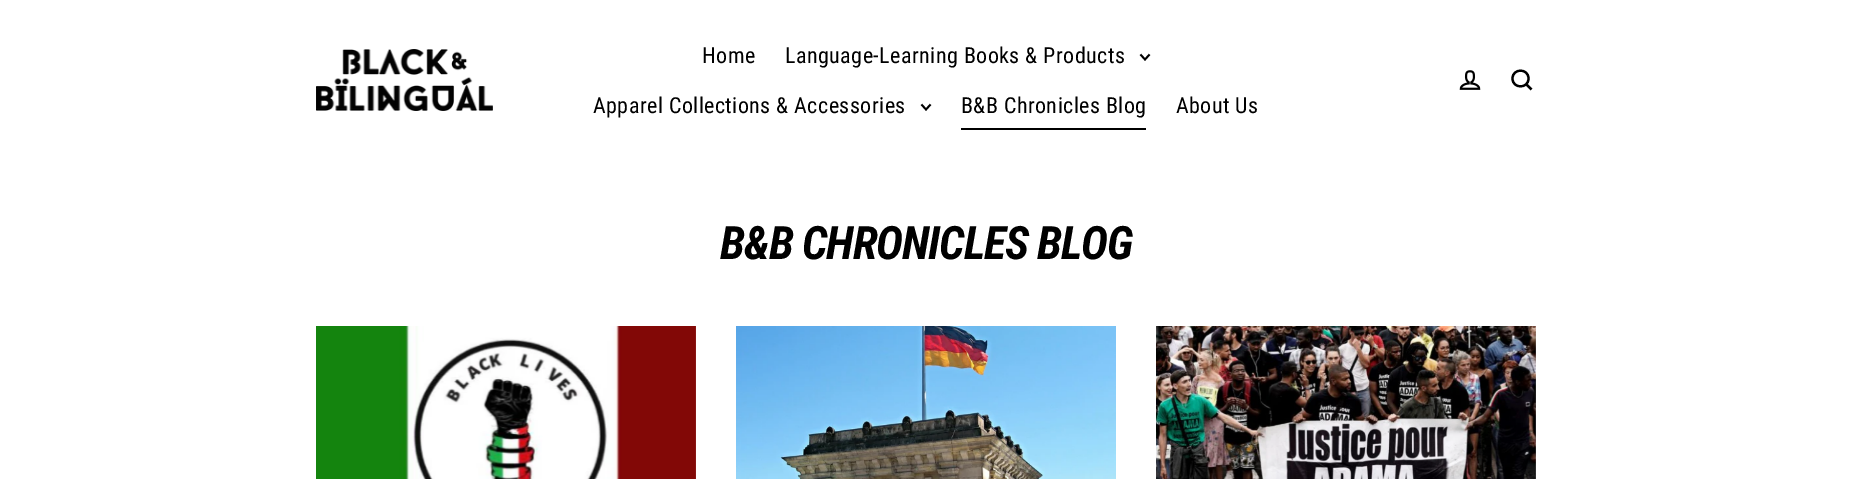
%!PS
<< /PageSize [1852 479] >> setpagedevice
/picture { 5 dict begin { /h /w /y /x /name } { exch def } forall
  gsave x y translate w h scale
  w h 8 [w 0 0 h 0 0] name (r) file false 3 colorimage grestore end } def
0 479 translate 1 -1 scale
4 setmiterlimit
1 setgray
0 0 1852 479 rectfill
(img1.rgb) 316 49 177 62 picture
/RobotoCondensed-Regular [22 0 0 -22 0 0] selectfont
0 setgray
702 63 moveto 0.45 0 (Home) ashow
785 63 moveto 0.45 0 (Language-Learning Books & Products) ashow
1.8 setlinewidth
newpath 1140.5 54.5 moveto 1145 59.5 lineto 1149.5 54.5 lineto stroke
593 113 moveto 0.45 0 (Apparel Collections & Accessories) ashow
newpath 921.5 104.5 moveto 926 109.5 lineto 930.5 104.5 lineto stroke
961 113 moveto 0.45 0 (B&B Chronicles Blog) ashow
961 128 185 2 rectfill
1176 113 moveto 0.45 0 (About Us) ashow
(img2.rgb) 1459 70 22 20 picture
2.2 setlinewidth
newpath 1528.5 78.5 moveto 1528.5 89 1512.5 89 1512.5 78.5 curveto 1512.5 68 1528.5 68 1528.5 78.5 curveto closepath 1531.5 89.5 moveto 1526.5 84.5 lineto stroke
/RobotoCondensed-BoldItalic [46 0 0 -46 0 0] selectfont
720 259 moveto -1.1 0 (B&B CHRONICLES BLOG) ashow
(img3.rgb) 316 326 380 153 picture
(img4.rgb) 736 326 380 153 picture
(img5.rgb) 1156 326 380 153 picture
showpage
